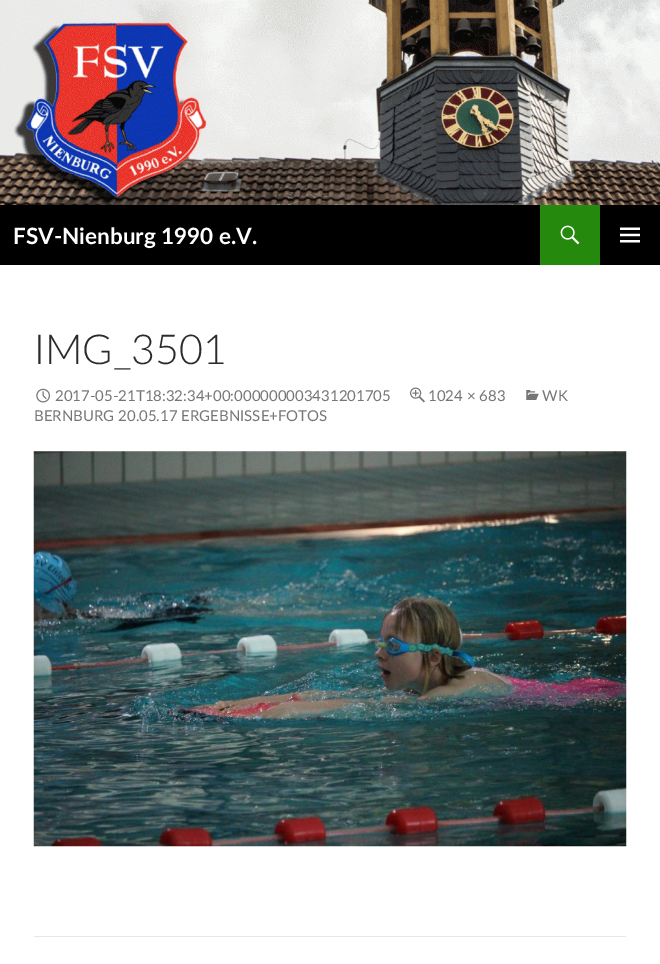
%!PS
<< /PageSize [660 964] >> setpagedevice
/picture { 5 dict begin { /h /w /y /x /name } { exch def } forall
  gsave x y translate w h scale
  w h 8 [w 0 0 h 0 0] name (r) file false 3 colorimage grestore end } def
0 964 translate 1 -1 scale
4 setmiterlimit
1 setgray
0 0 660 964 rectfill
(img1.rgb) 0 0 660 205 picture
0 setgray
0 205 660 60 rectfill
/Lato-Bold [22.5 0 0 -22.5 0 0] selectfont
1 setgray
13 244 moveto (FSV-Nienburg 1990 e.V.) show
0.141 0.537 0.051 setrgbcolor
540 205 60 60 rectfill
(img2.rgb) 560 225 20 20 picture
(img3.rgb) 620 227 20 16 picture
/Lato-Light [41.25 0 0 -41.25 0 0] selectfont
0.169 setgray
34 364 moveto (IMG_3501) show
(img4.rgb) 526 390 13 10 picture
/Lato-Regular [15 0 0 -15 0 0] selectfont
0.463 setgray
542 401 moveto (WK) show
34 421 moveto (BERNBURG 20.05.17 ERGEBNISSE+FOTOS) show
(img5.rgb) 36 388 14 15 picture
55 401 moveto (2017-05-21T18:32:34+00:000000003431201705) show
(img6.rgb) 410 387 15 16 picture
428 401 moveto (1024 × 683) show
(img7.rgb) 33 451 594 396 picture
0.902 setgray
34 936 592 1 rectfill
showpage
